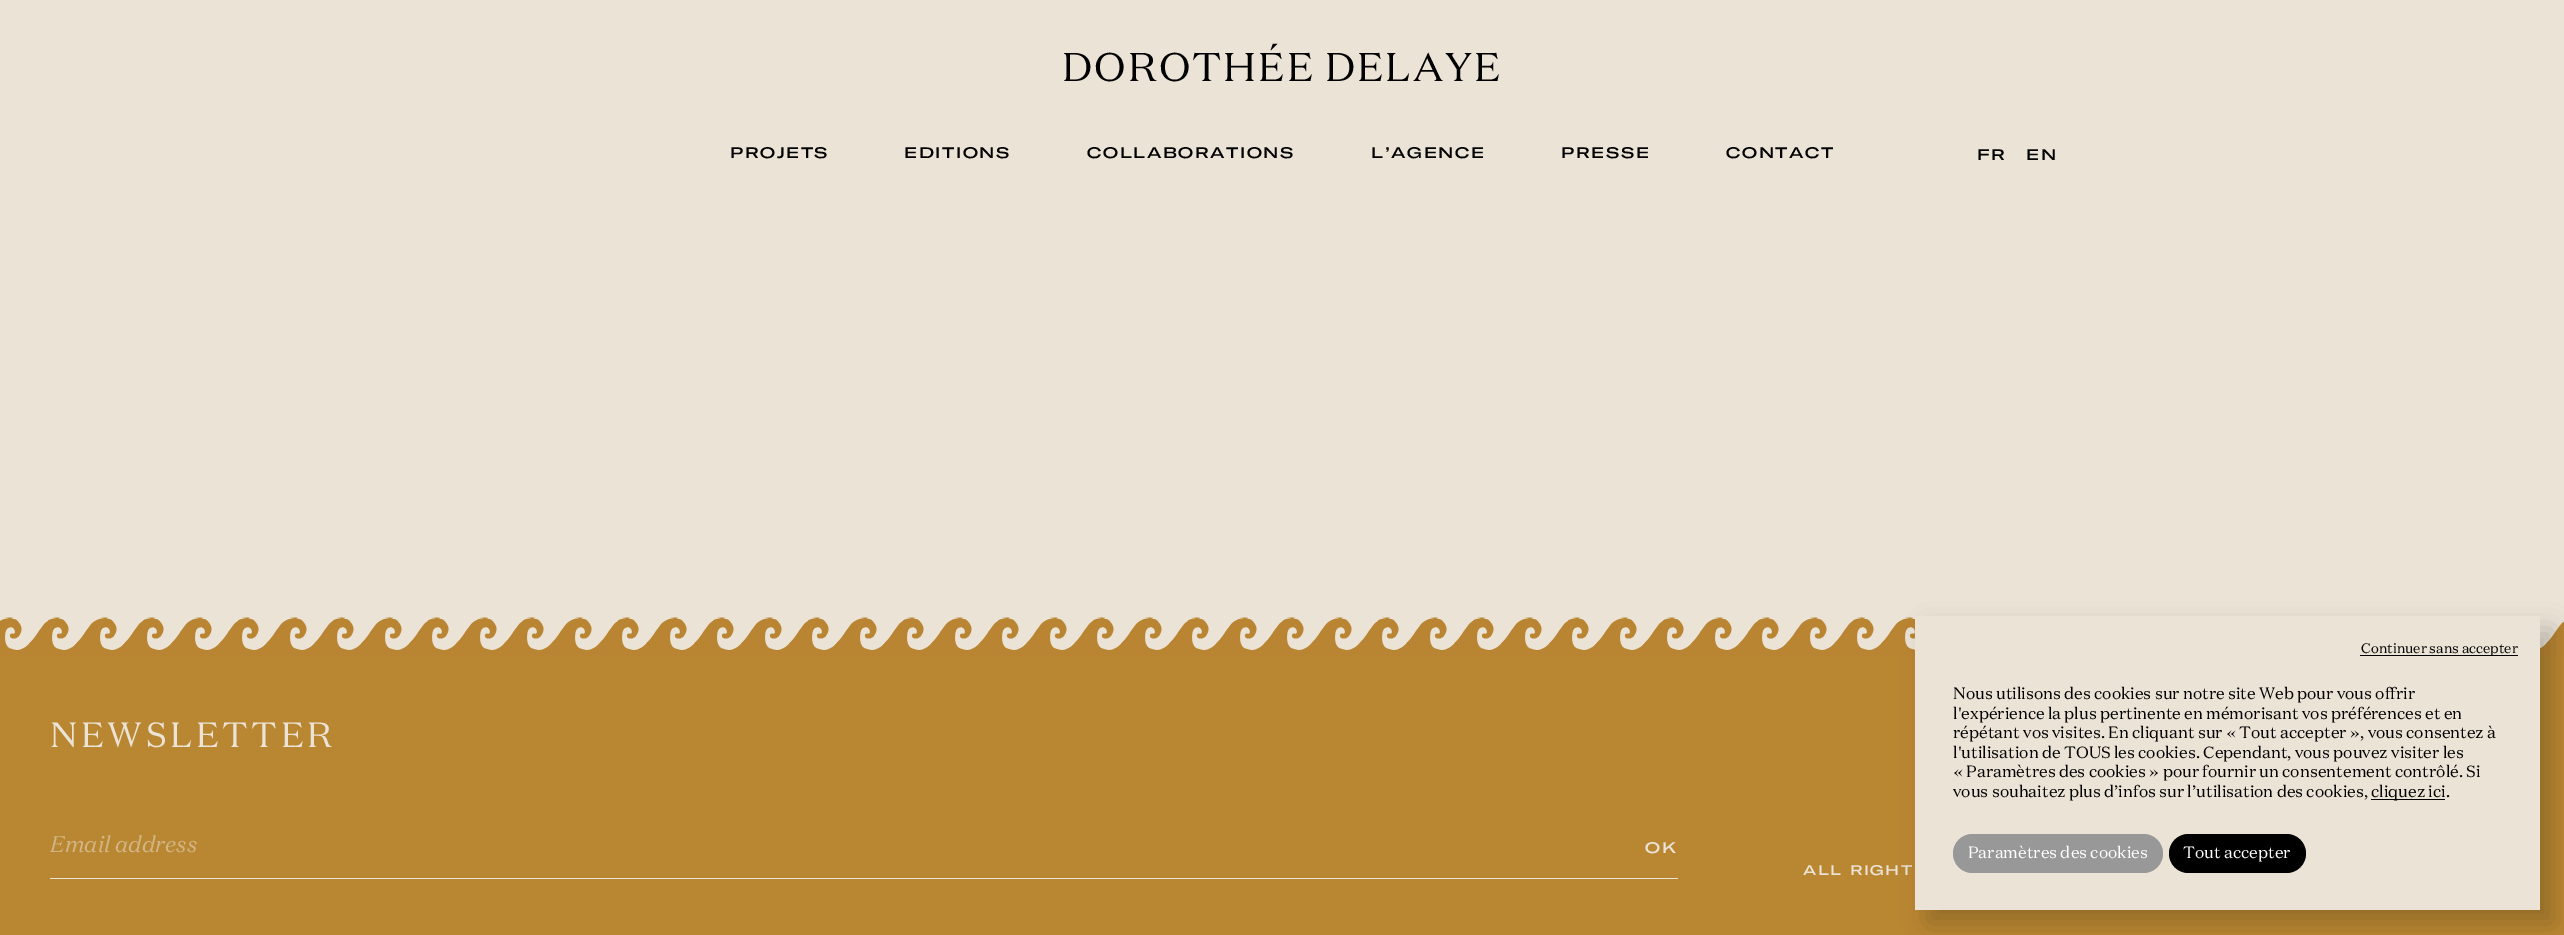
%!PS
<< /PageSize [2564 935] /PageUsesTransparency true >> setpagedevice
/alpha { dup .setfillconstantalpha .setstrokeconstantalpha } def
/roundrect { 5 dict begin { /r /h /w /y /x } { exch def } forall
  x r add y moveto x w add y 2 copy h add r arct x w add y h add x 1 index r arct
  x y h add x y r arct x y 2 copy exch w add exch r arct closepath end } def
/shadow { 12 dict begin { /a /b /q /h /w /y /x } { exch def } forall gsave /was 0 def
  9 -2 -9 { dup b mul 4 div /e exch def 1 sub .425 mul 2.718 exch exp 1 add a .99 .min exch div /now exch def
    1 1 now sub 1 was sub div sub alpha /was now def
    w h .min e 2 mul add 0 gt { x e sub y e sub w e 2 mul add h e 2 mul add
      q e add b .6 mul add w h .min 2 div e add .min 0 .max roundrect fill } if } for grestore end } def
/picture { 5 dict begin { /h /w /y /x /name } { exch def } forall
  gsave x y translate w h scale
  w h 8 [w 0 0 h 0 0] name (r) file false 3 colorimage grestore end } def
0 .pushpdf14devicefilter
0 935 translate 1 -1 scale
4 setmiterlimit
0.922 0.89 0.839 setrgbcolor
0 0 2564 935 rectfill
/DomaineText-Regular [40 0 0 -40 0 0] selectfont
0 setgray
1062 81 moveto 2 0 (DOROTHÉE DELAYE) ashow
/GTAmerica-Medium [15 0 0 -15 0 0] selectfont
730 158 moveto 1.6 0 (PROJETS) ashow
904 158 moveto 1.6 0 (EDITIONS) ashow
1087 158 moveto 1.6 0 (COLLABORATIONS) ashow
1371 158 moveto 1.6 0 (L’AGENCE) ashow
1561 158 moveto 1.6 0 (PRESSE) ashow
1726 158 moveto 1.6 0 (CONTACT) ashow
1977 160 moveto 1.6 0 (FR) ashow
2026 160 moveto 1.6 0 (EN) ashow
0.725 0.525 0.196 setrgbcolor
0 656 2564 279 rectfill
(img1.rgb) 0 617 2564 39 picture
/DomaineText-Regular [35 0 0 -35 0 0] selectfont
0.922 0.89 0.839 setrgbcolor
50 747 moveto 3.5 0 (NEWSLETTER) ashow
50 878 1628 1 rectfill
/DomaineText-Italic [22.5 0 0 -22.5 0 0] selectfont
0.824 0.71 0.518 setrgbcolor
50 852 moveto (Email address) show
/GTAmerica-Medium [15 0 0 -15 0 0] selectfont
0.922 0.89 0.839 setrgbcolor
1645 853 moveto 1.6 0 (OK) ashow
/GTAmerica-Medium [13.75 0 0 -13.75 0 0] selectfont
1803 875 moveto 1.5 0 (ALL RIGHT) ashow
0 setgray
1928 629 625 294 0 12.5 0.2 shadow
0.922 0.89 0.839 setrgbcolor
1915 616 625 294 rectfill
0 setgray
2360 655 158 1 rectfill
/DomaineText-Regular [13.75 0 0 -13.75 0 0] selectfont
2361 653 moveto (Continuer sans accepter) show
0.596 setgray
1953 834 210 39 19.5 roundrect fill
/DomaineText-Regular [16.25 0 0 -16.25 0 0] selectfont
1 setgray
1968 858 moveto (Paramètres des cookies) show
0 setgray
2169 834 137 39 19.5 roundrect fill
1 setgray
2183 858 moveto (Tout accepter) show
0 setgray
1953 699 moveto (Nous utilisons des cookies sur notre site Web pour vous offrir) show
1953 719 moveto (l'expérience la plus pertinente en mémorisant vos préférences et en) show
1953 738 moveto (répétant vos visites. En cliquant sur « Tout accepter », vous consentez à) show
1953 758 moveto (l'utilisation de TOUS les cookies. Cependant, vous pouvez visiter les) show
1953 777 moveto (« Paramètres des cookies » pour fournir un consentement contrôlé. Si) show
1953 797 moveto (vous souhaitez plus d’infos sur l’utilisation des cookies,) show
2371 799 74 1 rectfill
2371 797 moveto (cliquez ici.) show
.poppdf14devicefilter showpage
